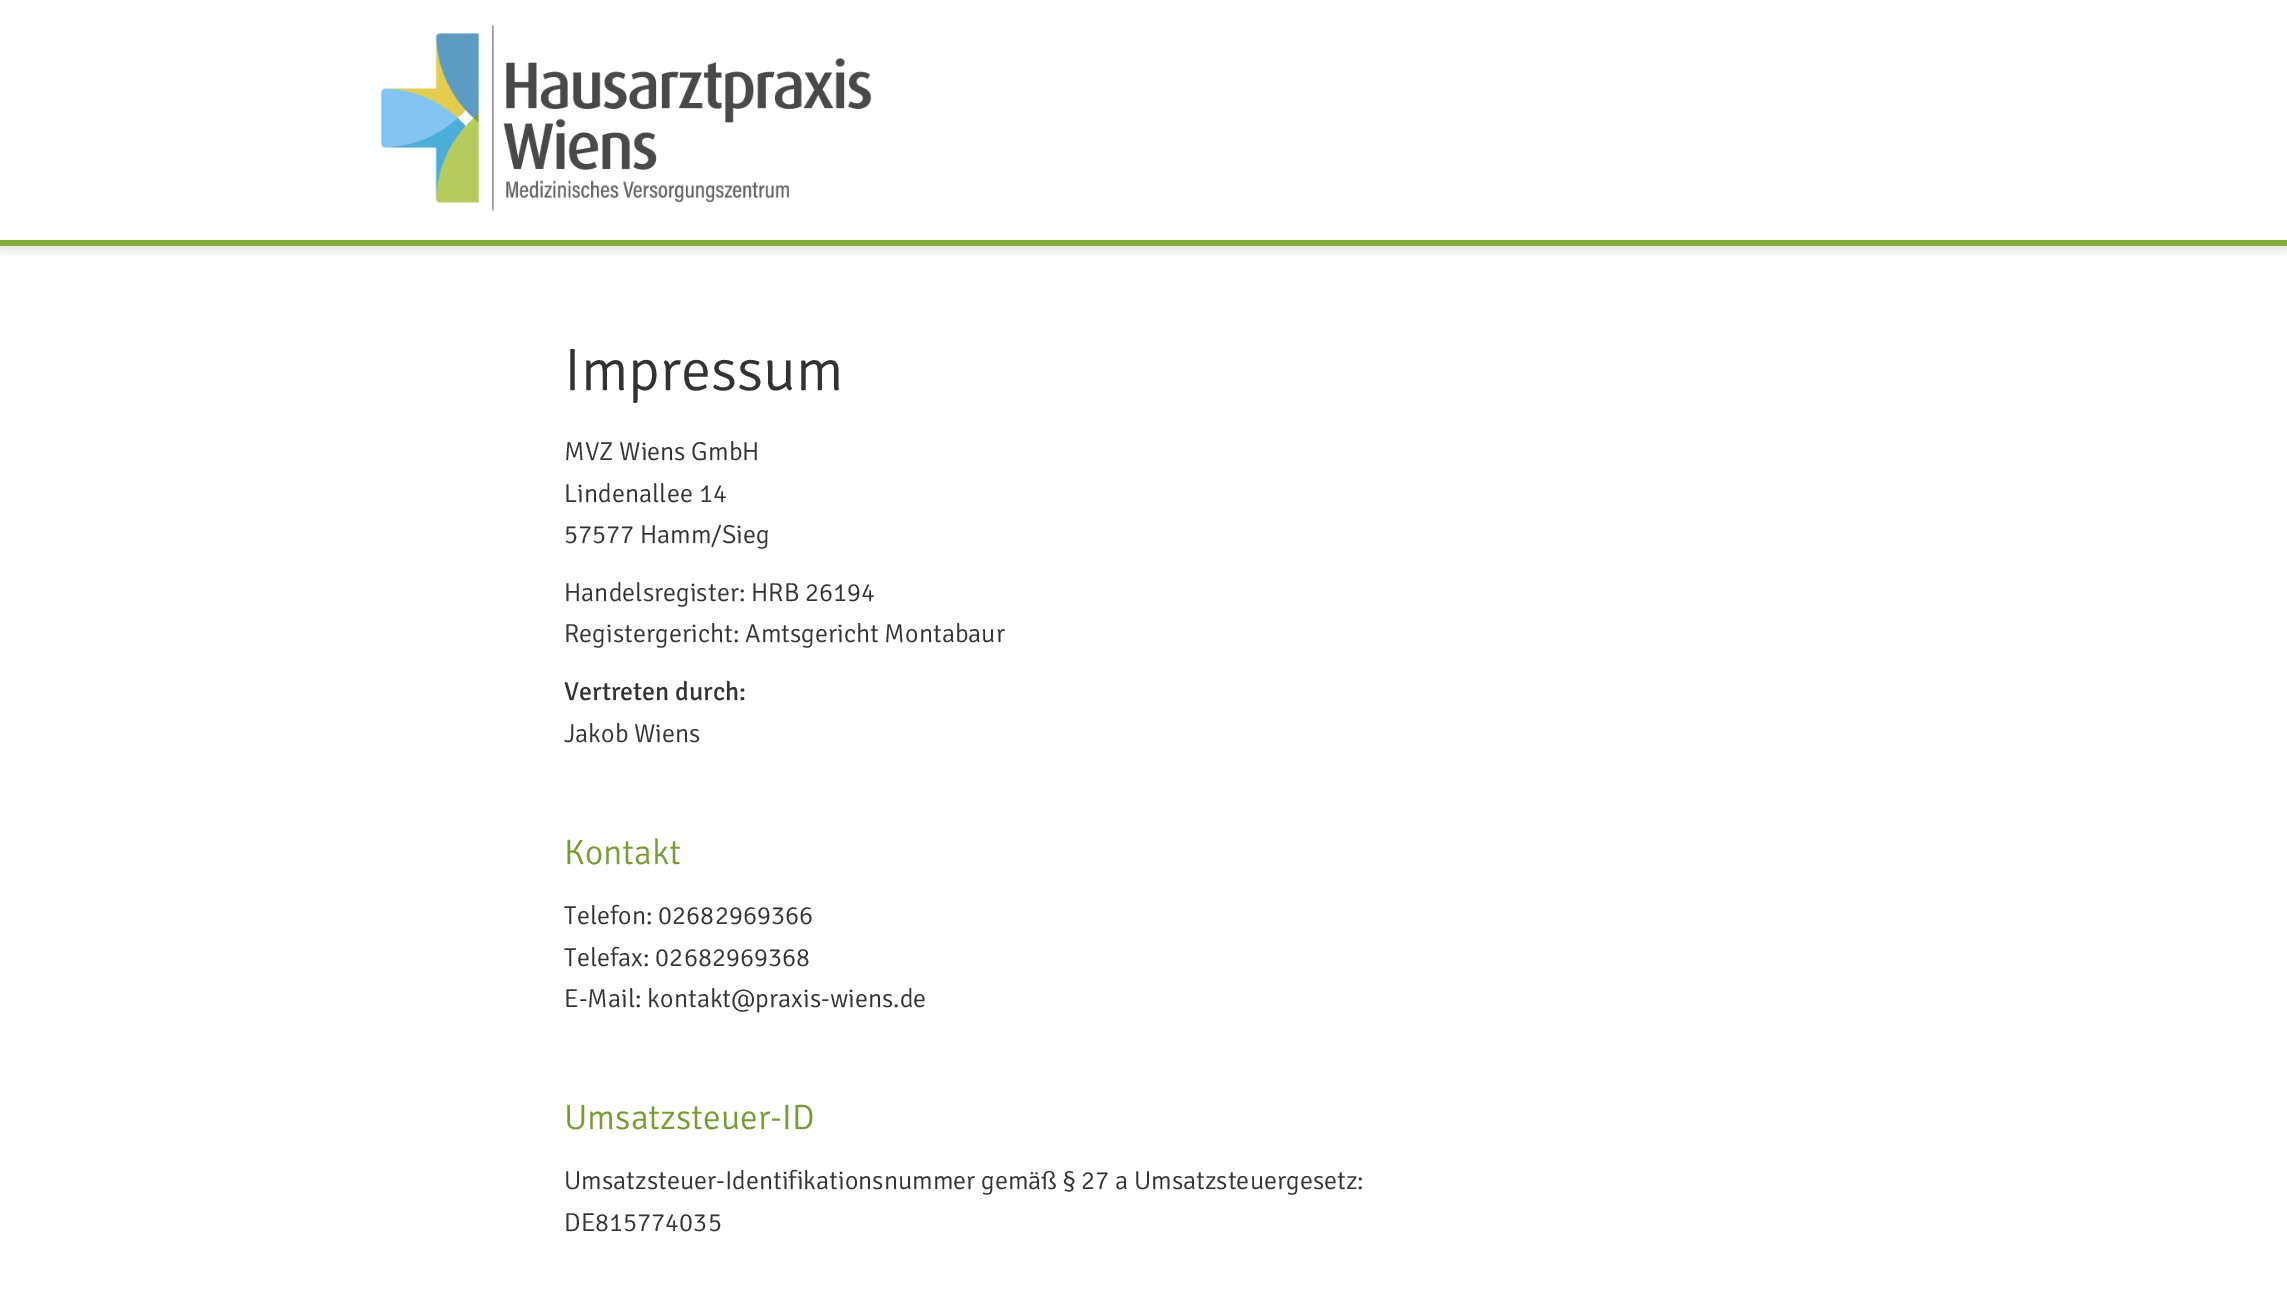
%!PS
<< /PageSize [2287 1303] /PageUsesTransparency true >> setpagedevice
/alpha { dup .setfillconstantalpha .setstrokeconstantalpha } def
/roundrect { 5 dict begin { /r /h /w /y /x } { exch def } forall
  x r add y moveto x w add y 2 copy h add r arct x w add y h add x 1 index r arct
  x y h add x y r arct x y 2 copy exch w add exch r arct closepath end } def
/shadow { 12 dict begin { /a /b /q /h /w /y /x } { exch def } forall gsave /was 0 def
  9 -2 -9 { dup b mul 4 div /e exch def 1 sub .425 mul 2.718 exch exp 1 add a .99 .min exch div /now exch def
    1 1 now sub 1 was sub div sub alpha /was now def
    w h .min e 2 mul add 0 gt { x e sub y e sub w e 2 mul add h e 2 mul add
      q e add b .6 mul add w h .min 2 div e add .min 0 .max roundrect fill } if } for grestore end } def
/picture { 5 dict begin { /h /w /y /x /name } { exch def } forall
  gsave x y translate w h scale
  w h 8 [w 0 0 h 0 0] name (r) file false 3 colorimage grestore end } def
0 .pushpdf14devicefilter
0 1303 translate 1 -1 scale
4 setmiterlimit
1 setgray
0 0 2287 1303 rectfill
gsave
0 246 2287 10 rectclip
0 setgray
0 2 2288 246 0 7 0.15 shadow
grestore
0.518 0.678 0.22 setrgbcolor
0 240 2287 6 rectfill
(img1.rgb) 380 24 492 188 picture
/Signika-Light [60 0 0 -60 0 0] selectfont
0.2 setgray
564 390 moveto (Impressum) show
/Signika-Light [26 0 0 -26 0 0] selectfont
564 460 moveto (MVZ Wiens GmbH) show
564 502 moveto (Lindenallee 14) show
564 543 moveto (57577 Hamm/Sieg) show
564 601 moveto (Handelsregister: HRB 26194) show
564 642 moveto (Registergericht: Amtsgericht Montabaur) show
/Signika-Regular [26 0 0 -26 0 0] selectfont
564 700 moveto (Vertreten durch:) show
/Signika-Light [26 0 0 -26 0 0] selectfont
564 742 moveto (Jakob Wiens) show
/Signika-Light [35.25 0 0 -35.25 0 0] selectfont
0.467 0.612 0.196 setrgbcolor
564 864 moveto (Kontakt) show
/Signika-Light [26 0 0 -26 0 0] selectfont
0.2 setgray
564 924 moveto (Telefon: 02682969366) show
564 966 moveto (Telefax: 02682969368) show
564 1007 moveto (E-Mail: kontakt@praxis-wiens.de) show
/Signika-Light [35.25 0 0 -35.25 0 0] selectfont
0.467 0.612 0.196 setrgbcolor
564 1129 moveto (Umsatzsteuer-ID) show
/Signika-Light [26 0 0 -26 0 0] selectfont
0.2 setgray
564 1189 moveto (Umsatzsteuer-Identifikationsnummer gemäß § 27 a Umsatzsteuergesetz:) show
564 1231 moveto (DE815774035) show
.poppdf14devicefilter showpage
